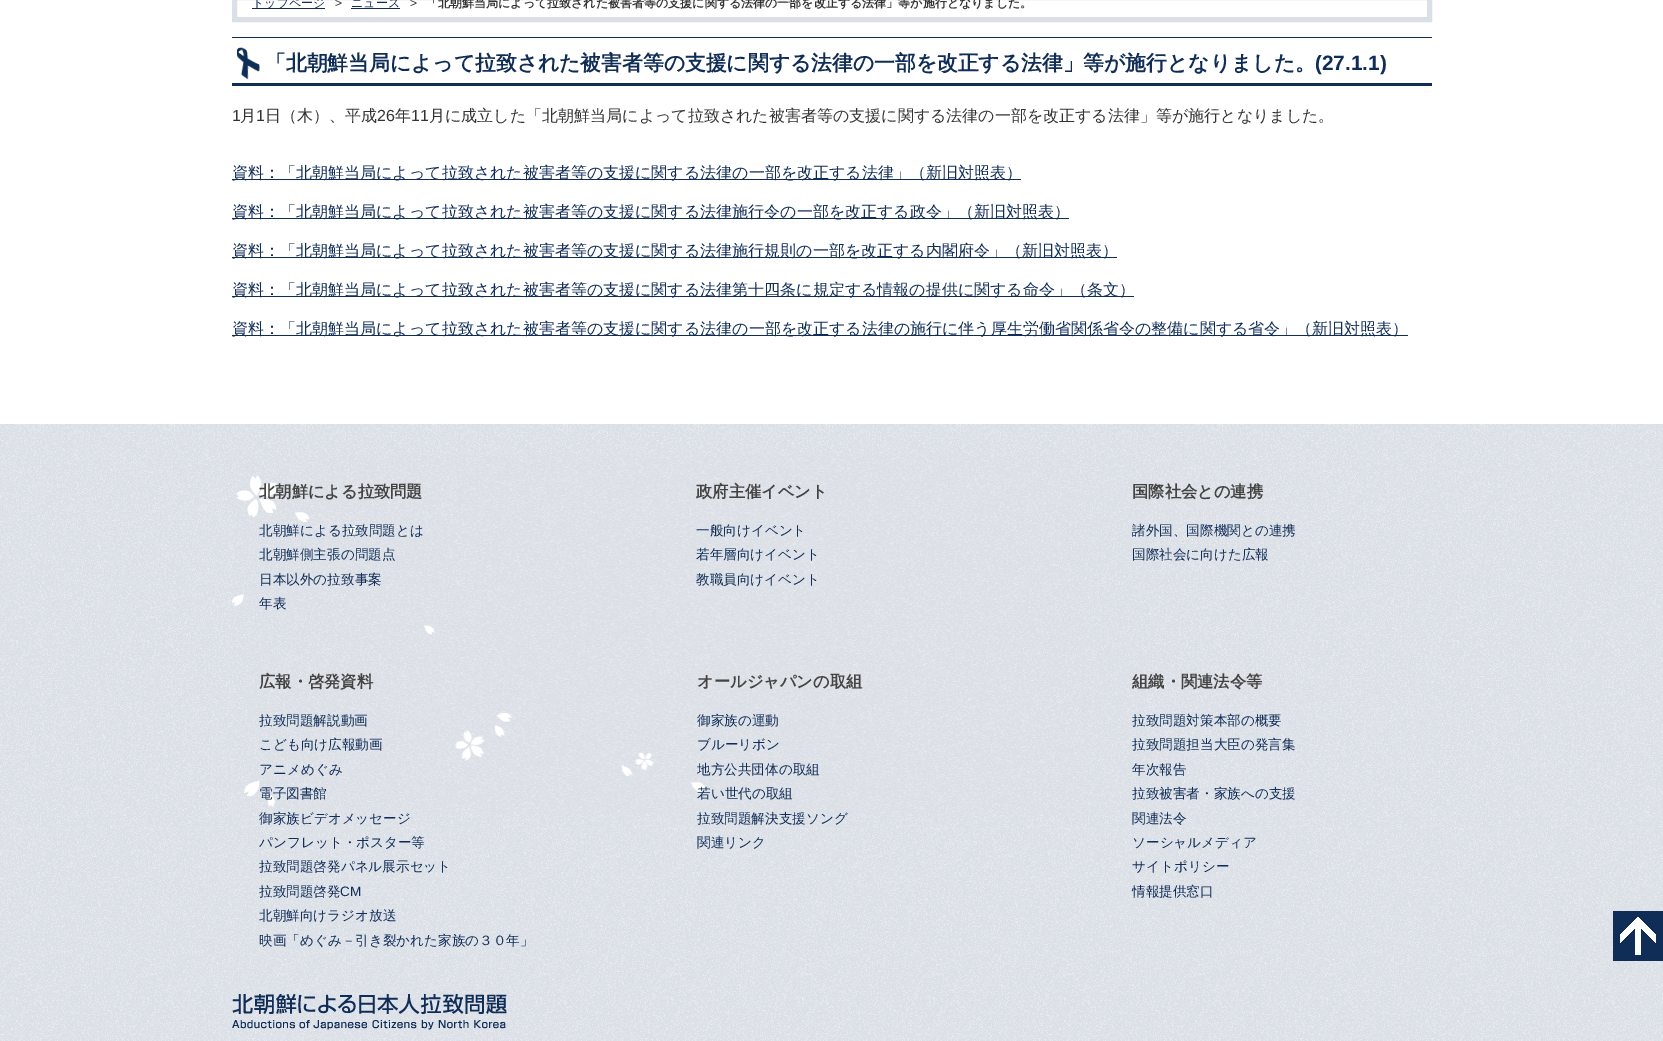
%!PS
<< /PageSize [1663 1041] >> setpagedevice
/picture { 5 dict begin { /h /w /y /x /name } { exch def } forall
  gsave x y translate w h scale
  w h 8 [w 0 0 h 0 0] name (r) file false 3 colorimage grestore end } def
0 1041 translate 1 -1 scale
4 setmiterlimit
1 setgray
0 0 1663 1041 rectfill
0.859 0.875 0.902 setrgbcolor
5 setlinewidth
234.5 -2.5 1195 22 rectstroke
0.063 0.176 0.341 setrgbcolor
252 8 73 1 rectfill
/WenQuanYiZenHei-Medium [12 0 0 -12 0 0] selectfont
252 7 moveto (トップページ) show
/LiberationSans-Regular [12 0 0 -12 0 0] selectfont
0.2 setgray
335 7 moveto (>) show
/WenQuanYiZenHei-Medium [12 0 0 -12 0 0] selectfont
0.063 0.176 0.341 setrgbcolor
351 7 moveto (ニュース) show
351 8 49 1 rectfill
/LiberationSans-Regular [12 0 0 -12 0 0] selectfont
0.2 setgray
410 7 moveto (>) show
/WenQuanYiZenHei-Bold [12 0 0 -12 0 0] selectfont
426 7 moveto (「北朝鮮当局によって拉致された被害者等の支援に関する法律の一部を改正する法律」等が施行となりました。) show
(img1.rgb) 237 47 23 33 picture
0.063 0.176 0.341 setrgbcolor
232 37 1200 1 rectfill
232 83 1200 3 rectfill
/WenQuanYiZenHei-Bold [20.8 0 0 -20.8 0 0] selectfont
265 70 moveto (「北朝鮮当局によって拉致された被害者等の支援に関する法律の一部を改正する法律」等が施行となりました。) show
/LiberationSans-Bold [20.8 0 0 -20.8 0 0] selectfont
1315 70 moveto (\(27.1.1\)) show
/LiberationSans-Regular [16 0 0 -16 0 0] selectfont
0.2 setgray
232 121 moveto (1) show
/WenQuanYiZenHei-Medium [16 0 0 -16 0 0] selectfont
240 121 moveto (月) show
/LiberationSans-Regular [16 0 0 -16 0 0] selectfont
256 121 moveto (1) show
/WenQuanYiZenHei-Medium [16 0 0 -16 0 0] selectfont
265 121 moveto (日（木）、平成) show
/LiberationSans-Regular [16 0 0 -16 0 0] selectfont
377 121 moveto (26) show
/WenQuanYiZenHei-Medium [16 0 0 -16 0 0] selectfont
395 121 moveto (年) show
/LiberationSans-Regular [16 0 0 -16 0 0] selectfont
411 121 moveto (11) show
/WenQuanYiZenHei-Medium [16 0 0 -16 0 0] selectfont
429 121 moveto (月に成立した「北朝鮮当局によって拉致された被害者等の支援に関する法律の一部を改正する法律」等が施行となりました。) show
0.063 0.176 0.341 setrgbcolor
232 179 789 1 rectfill
232 178 moveto (資料：「北朝鮮当局によって拉致された被害者等の支援に関する法律の一部を改正する法律」（新旧対照表）) show
232 218 837 1 rectfill
232 217 moveto (資料：「北朝鮮当局によって拉致された被害者等の支援に関する法律施行令の一部を改正する政令」（新旧対照表）) show
232 257 885 1 rectfill
232 256 moveto (資料：「北朝鮮当局によって拉致された被害者等の支援に関する法律施行規則の一部を改正する内閣府令」（新旧対照表）) show
232 296 902 1 rectfill
232 295 moveto (資料：「北朝鮮当局によって拉致された被害者等の支援に関する法律第十四条に規定する情報の提供に関する命令」（条文）) show
232 335 1176 1 rectfill
232 334 moveto (資料：「北朝鮮当局によって拉致された被害者等の支援に関する法律の一部を改正する法律の施行に伴う厚生労働省関係省令の整備に関する省令」（新旧対照表）) show
(img2.rgb) 0 424 1663 617 picture
(img3.rgb) 232 454 977 360 picture
/WenQuanYiZenHei-Bold [16.25 0 0 -16.25 0 0] selectfont
0.267 setgray
259 497 moveto (北朝鮮による拉致問題) show
/WenQuanYiZenHei-Medium [13.6 0 0 -13.6 0 0] selectfont
0.063 0.176 0.341 setrgbcolor
259 535 moveto (北朝鮮による拉致問題とは) show
259 559 moveto (北朝鮮側主張の問題点) show
259 584 moveto (日本以外の拉致事案) show
259 608 moveto (年表) show
/WenQuanYiZenHei-Bold [16.25 0 0 -16.25 0 0] selectfont
0.267 setgray
696 497 moveto (政府主催イベント) show
/WenQuanYiZenHei-Medium [13.6 0 0 -13.6 0 0] selectfont
0.063 0.176 0.341 setrgbcolor
696 535 moveto (一般向けイベント) show
696 559 moveto (若年層向けイベント) show
696 584 moveto (教職員向けイベント) show
/WenQuanYiZenHei-Bold [16.25 0 0 -16.25 0 0] selectfont
0.267 setgray
1132 497 moveto (国際社会との連携) show
/WenQuanYiZenHei-Medium [13.6 0 0 -13.6 0 0] selectfont
0.063 0.176 0.341 setrgbcolor
1132 535 moveto (諸外国、国際機関との連携) show
1132 559 moveto (国際社会に向けた広報) show
/WenQuanYiZenHei-Bold [16.25 0 0 -16.25 0 0] selectfont
0.267 setgray
259 687 moveto (広報・啓発資料) show
/WenQuanYiZenHei-Medium [13.6 0 0 -13.6 0 0] selectfont
0.063 0.176 0.341 setrgbcolor
259 725 moveto (拉致問題解説動画) show
259 749 moveto (こども向け広報動画) show
259 774 moveto (アニメめぐみ) show
259 798 moveto (電子図書館) show
259 823 moveto (御家族ビデオメッセージ) show
259 847 moveto (パンフレット・ポスター等) show
259 871 moveto (拉致問題啓発パネル展示セット) show
259 896 moveto (拉致問題啓発) show
/LiberationSans-Regular [13.6 0 0 -13.6 0 0] selectfont
340 896 moveto (CM) show
/WenQuanYiZenHei-Medium [13.6 0 0 -13.6 0 0] selectfont
259 920 moveto (北朝鮮向けラジオ放送) show
259 945 moveto (映画「めぐみ－引き裂かれた家族の３０年」) show
/WenQuanYiZenHei-Bold [16.25 0 0 -16.25 0 0] selectfont
0.267 setgray
697 687 moveto (オールジャパンの取組) show
/WenQuanYiZenHei-Medium [13.6 0 0 -13.6 0 0] selectfont
0.063 0.176 0.341 setrgbcolor
697 725 moveto (御家族の運動) show
697 749 moveto (ブルーリボン) show
697 774 moveto (地方公共団体の取組) show
697 798 moveto (若い世代の取組) show
697 823 moveto (拉致問題解決支援ソング) show
697 847 moveto (関連リンク) show
/WenQuanYiZenHei-Bold [16.25 0 0 -16.25 0 0] selectfont
0.267 setgray
1132 687 moveto (組織・関連法令等) show
/WenQuanYiZenHei-Medium [13.6 0 0 -13.6 0 0] selectfont
0.063 0.176 0.341 setrgbcolor
1132 725 moveto (拉致問題対策本部の概要) show
1132 749 moveto (拉致問題担当大臣の発言集) show
1132 774 moveto (年次報告) show
1132 798 moveto (拉致被害者・家族への支援) show
1132 823 moveto (関連法令) show
1132 847 moveto (ソーシャルメディア) show
1132 871 moveto (サイトポリシー) show
1132 896 moveto (情報提供窓口) show
(img4.rgb) 232 994 276 36 picture
(img5.rgb) 1613 911 50 50 picture
showpage
